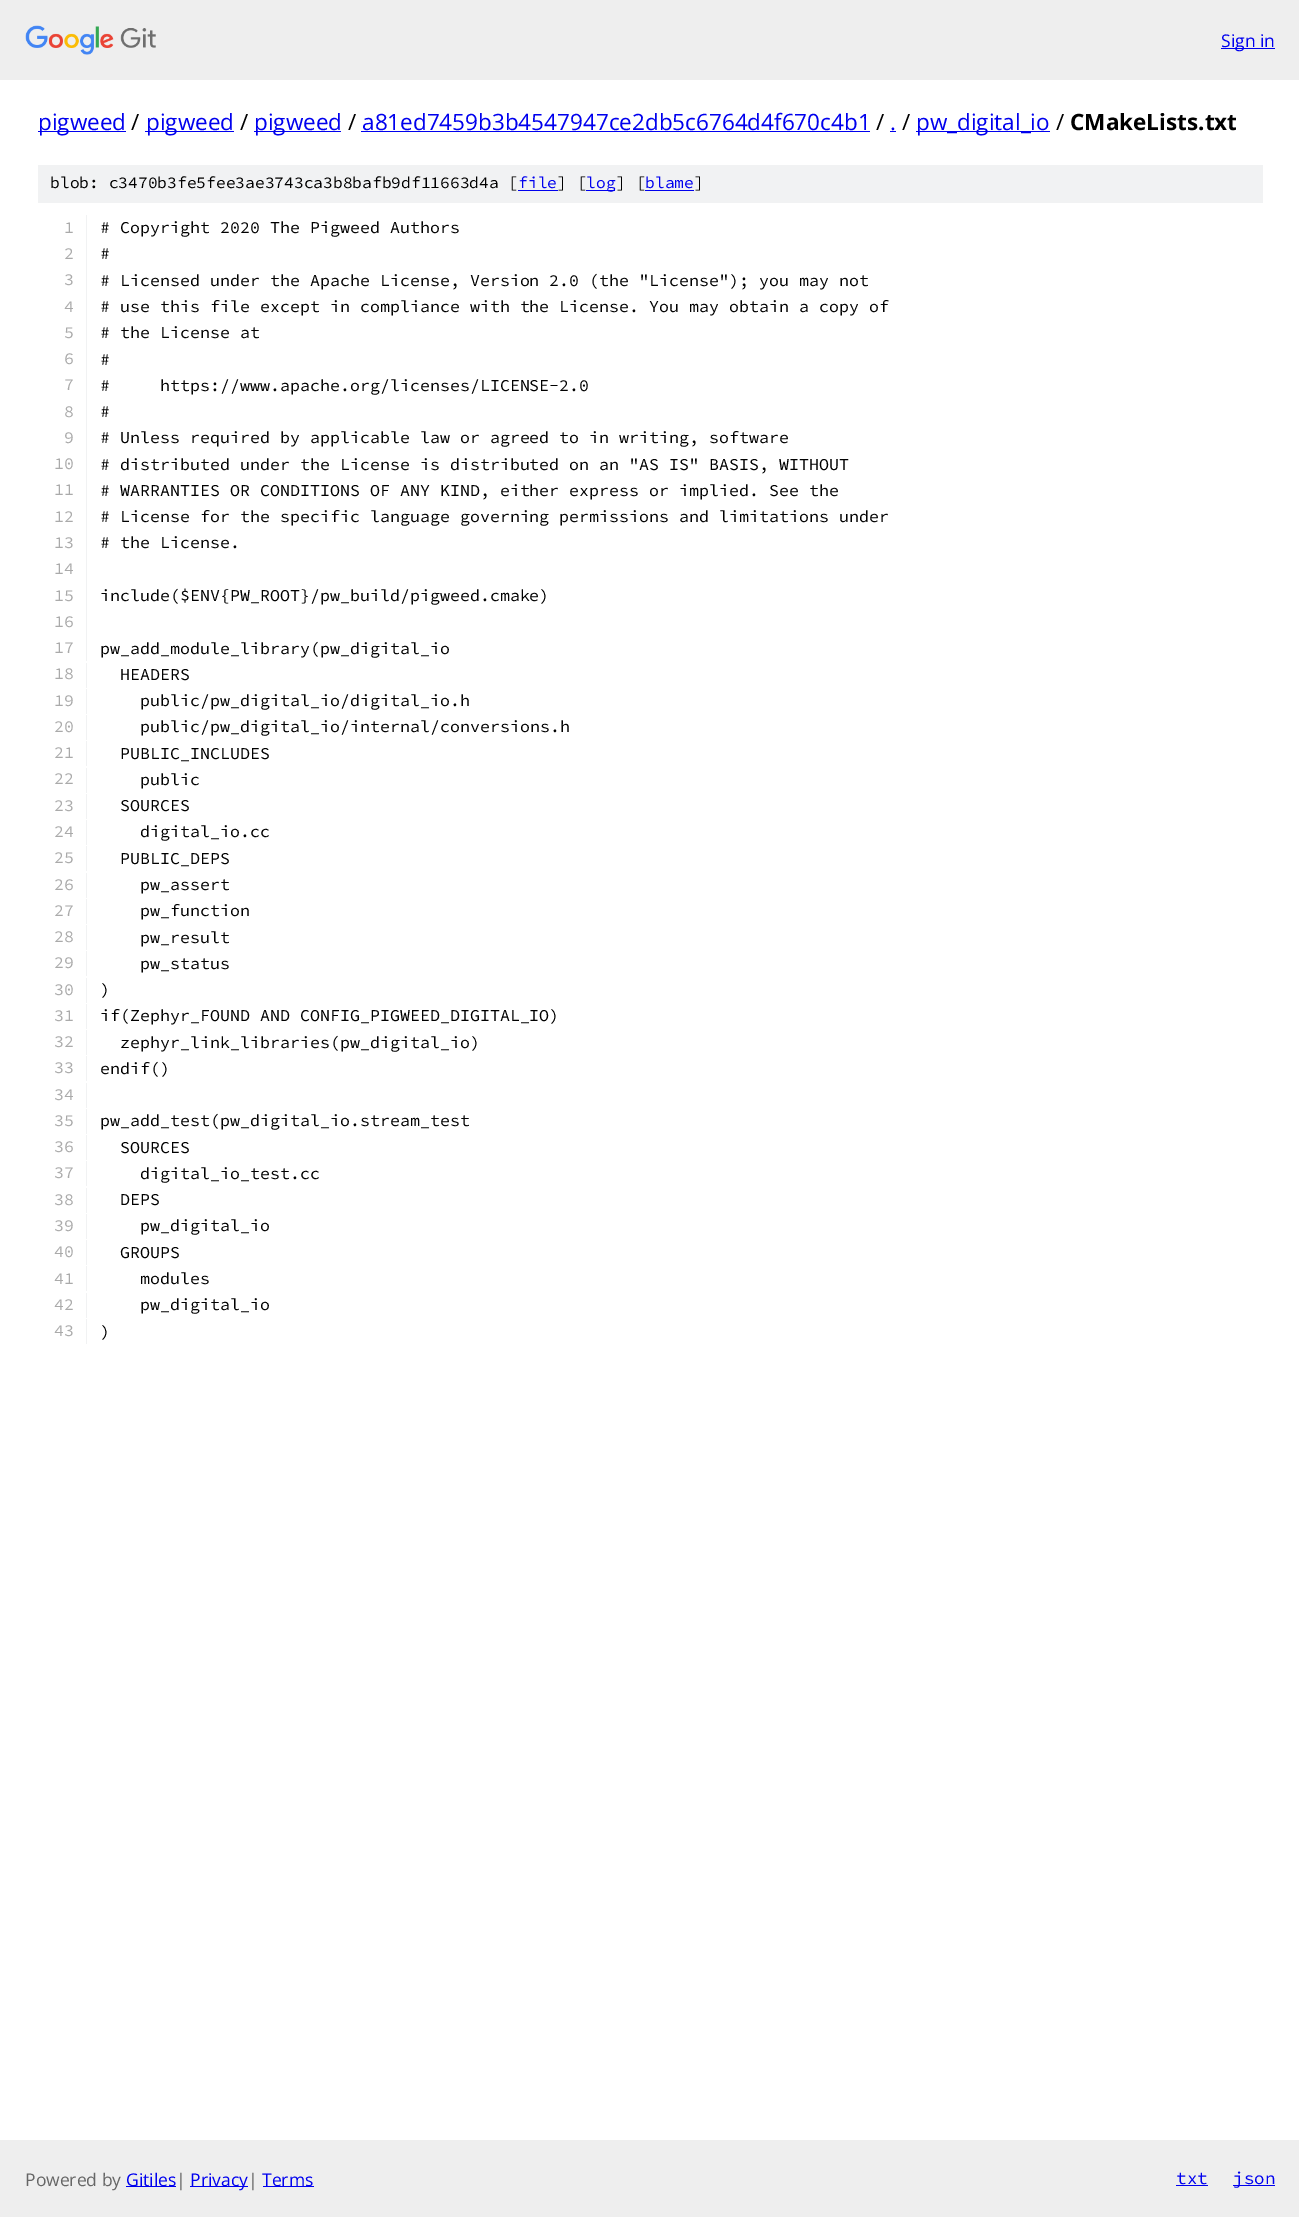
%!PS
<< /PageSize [1299 2217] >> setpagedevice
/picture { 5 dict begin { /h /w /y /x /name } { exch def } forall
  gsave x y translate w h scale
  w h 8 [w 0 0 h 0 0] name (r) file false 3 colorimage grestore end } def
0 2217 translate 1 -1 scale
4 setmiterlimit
1 setgray
0 0 1299 2217 rectfill
0.933 setgray
0 0 1299 80 rectfill
(img1.rgb) 25 25 131 30 picture
0 0 0.933 setrgbcolor
1221 48 54 1 rectfill
/OpenSans-Regular [17.5 0 0 -17.5 0 0] selectfont
1221 47 moveto (Sign in) show
38 131 88 1 rectfill
/OpenSans-Regular [22.5 0 0 -22.5 0 0] selectfont
38 130 moveto (pigweed) show
0 setgray
131 130 moveto (/) show
0 0 0.933 setrgbcolor
145 131 89 1 rectfill
146 130 moveto (pigweed) show
0 setgray
240 130 moveto (/) show
0 0 0.933 setrgbcolor
254 131 87 1 rectfill
254 130 moveto (pigweed) show
0 setgray
348 130 moveto (/) show
0 0 0.933 setrgbcolor
362 130 moveto (a81ed7459b3b4547947ce2db5c6764d4f670c4b1) show
361 131 509 1 rectfill
0 setgray
876 130 moveto (/) show
0 0 0.933 setrgbcolor
890 130 moveto (.) show
890 131 6 1 rectfill
0 setgray
902 130 moveto (/) show
0 0 0.933 setrgbcolor
916 131 134 1 rectfill
916 130 moveto (pw_digital_io) show
0 setgray
1056 130 moveto (/) show
/OpenSans-Bold [22.5 0 0 -22.5 0 0] selectfont
1070 130 moveto (CMakeLists.txt) show
0.945 0.949 0.953 setrgbcolor
38 165 1225 38 rectfill
/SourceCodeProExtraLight-ExtraLight [16.25 0 0 -16.25 0 0] selectfont
0 setgray
50 188 moveto (blob: c3470b3fe5fee3ae3743ca3b8bafb9df11663d4a [) show
0 0 0.933 setrgbcolor
518 188 moveto (file) show
518 190 40 1 rectfill
0 setgray
557 188 moveto (] [) show
0 0 0.933 setrgbcolor
586 190 29 1 rectfill
586 188 moveto (log) show
0 setgray
616 188 moveto (] [) show
0 0 0.933 setrgbcolor
645 188 moveto (blame) show
645 190 49 1 rectfill
0 setgray
694 188 moveto (]) show
0.945 0.949 0.953 setrgbcolor
86 215 1 446 rectfill
/SourceCodeProExtraLight-ExtraLight [16.65 0 0 -16.65 0 0] selectfont
0.667 setgray
64 233 moveto (1) show
0 setgray
100 233 moveto (# Copyright 2020 The Pigweed Authors) show
0.667 setgray
64 259 moveto (2) show
0 setgray
100 259 moveto (#) show
0.667 setgray
64 285 moveto (3) show
0 setgray
100 286 moveto (# Licensed under the Apache License, Version 2.0 \(the "License"\); you may not) show
0.667 setgray
64 312 moveto (4) show
0 setgray
100 312 moveto (# use this file except in compliance with the License. You may obtain a copy of) show
0.667 setgray
64 338 moveto (5) show
0 setgray
100 338 moveto (# the License at) show
0.667 setgray
64 364 moveto (6) show
0 setgray
100 365 moveto (#) show
0.667 setgray
64 390 moveto (7) show
0 setgray
100 391 moveto (#     https://www.apache.org/licenses/LICENSE-2.0) show
0.667 setgray
64 417 moveto (8) show
0 setgray
100 417 moveto (#) show
0.667 setgray
64 443 moveto (9) show
0 setgray
100 443 moveto (# Unless required by applicable law or agreed to in writing, software) show
0.667 setgray
54 469 moveto (10) show
0 setgray
100 470 moveto (# distributed under the License is distributed on an "AS IS" BASIS, WITHOUT) show
0.667 setgray
54 495 moveto (11) show
0 setgray
100 496 moveto (# WARRANTIES OR CONDITIONS OF ANY KIND, either express or implied. See the) show
0.667 setgray
54 522 moveto (12) show
0 setgray
100 522 moveto (# License for the specific language governing permissions and limitations under) show
0.667 setgray
54 548 moveto (13) show
0 setgray
100 548 moveto (# the License.) show
0.667 setgray
54 574 moveto (14) show
54 601 moveto (15) show
0 setgray
100 601 moveto (include\($ENV{PW_ROOT}/pw_build/pigweed.cmake\)) show
0.667 setgray
54 627 moveto (16) show
54 653 moveto (17) show
0 setgray
100 654 moveto (pw_add_module_library\(pw_digital_io) show
0.945 0.949 0.953 setrgbcolor
86 663 1 25 rectfill
0.667 setgray
54 679 moveto (18) show
0 setgray
120 680 moveto (HEADERS) show
0.945 0.949 0.953 setrgbcolor
86 689 1 25 rectfill
0.667 setgray
54 706 moveto (19) show
0 setgray
140 706 moveto (public/pw_digital_io/digital_io.h) show
0.945 0.949 0.953 setrgbcolor
86 715 1 25 rectfill
0.667 setgray
54 732 moveto (20) show
0 setgray
140 732 moveto (public/pw_digital_io/internal/conversions.h) show
0.945 0.949 0.953 setrgbcolor
86 741 1 25 rectfill
0.667 setgray
54 758 moveto (21) show
0 setgray
120 759 moveto (PUBLIC_INCLUDES) show
0.945 0.949 0.953 setrgbcolor
86 768 1 25 rectfill
0.667 setgray
54 784 moveto (22) show
0 setgray
140 785 moveto (public) show
0.945 0.949 0.953 setrgbcolor
86 794 1 25 rectfill
0.667 setgray
54 811 moveto (23) show
0 setgray
120 811 moveto (SOURCES) show
0.945 0.949 0.953 setrgbcolor
86 820 1 25 rectfill
0.667 setgray
54 837 moveto (24) show
0 setgray
140 837 moveto (digital_io.cc) show
0.945 0.949 0.953 setrgbcolor
86 846 1 25 rectfill
0.667 setgray
54 863 moveto (25) show
0 setgray
120 864 moveto (PUBLIC_DEPS) show
0.945 0.949 0.953 setrgbcolor
86 873 1 25 rectfill
0.667 setgray
54 890 moveto (26) show
0 setgray
140 890 moveto (pw_assert) show
0.945 0.949 0.953 setrgbcolor
86 899 1 25 rectfill
0.667 setgray
54 916 moveto (27) show
0 setgray
140 916 moveto (pw_function) show
0.945 0.949 0.953 setrgbcolor
86 925 1 25 rectfill
0.667 setgray
54 942 moveto (28) show
0 setgray
140 943 moveto (pw_result) show
0.945 0.949 0.953 setrgbcolor
86 951 1 25 rectfill
0.667 setgray
54 968 moveto (29) show
0 setgray
140 969 moveto (pw_status) show
0.945 0.949 0.953 setrgbcolor
86 978 1 25 rectfill
0.667 setgray
54 995 moveto (30) show
0 setgray
100 995 moveto (\)) show
0.945 0.949 0.953 setrgbcolor
86 1004 1 25 rectfill
0.667 setgray
54 1021 moveto (31) show
0 setgray
100 1021 moveto (if\(Zephyr_FOUND AND CONFIG_PIGWEED_DIGITAL_IO\)) show
0.945 0.949 0.953 setrgbcolor
86 1030 1 25 rectfill
0.667 setgray
54 1047 moveto (32) show
0 setgray
120 1048 moveto (zephyr_link_libraries\(pw_digital_io\)) show
0.945 0.949 0.953 setrgbcolor
86 1056 1 25 rectfill
0.667 setgray
54 1073 moveto (33) show
0 setgray
100 1074 moveto (endif\(\)) show
0.945 0.949 0.953 setrgbcolor
86 1083 1 25 rectfill
0.667 setgray
54 1100 moveto (34) show
0.945 0.949 0.953 setrgbcolor
86 1109 1 25 rectfill
0.667 setgray
54 1126 moveto (35) show
0 setgray
100 1126 moveto (pw_add_test\(pw_digital_io.stream_test) show
0.945 0.949 0.953 setrgbcolor
86 1135 1 25 rectfill
0.667 setgray
54 1152 moveto (36) show
0 setgray
120 1153 moveto (SOURCES) show
0.945 0.949 0.953 setrgbcolor
86 1161 1 25 rectfill
0.667 setgray
54 1178 moveto (37) show
0 setgray
140 1179 moveto (digital_io_test.cc) show
0.945 0.949 0.953 setrgbcolor
86 1188 1 25 rectfill
0.667 setgray
54 1205 moveto (38) show
0 setgray
120 1205 moveto (DEPS) show
0.945 0.949 0.953 setrgbcolor
86 1214 1 25 rectfill
0.667 setgray
54 1231 moveto (39) show
0 setgray
140 1231 moveto (pw_digital_io) show
0.945 0.949 0.953 setrgbcolor
86 1240 1 25 rectfill
0.667 setgray
54 1257 moveto (40) show
0 setgray
120 1258 moveto (GROUPS) show
0.945 0.949 0.953 setrgbcolor
86 1266 1 25 rectfill
0.667 setgray
54 1284 moveto (41) show
0 setgray
140 1284 moveto (modules) show
0.945 0.949 0.953 setrgbcolor
86 1293 1 25 rectfill
0.667 setgray
54 1310 moveto (42) show
0 setgray
140 1310 moveto (pw_digital_io) show
0.945 0.949 0.953 setrgbcolor
86 1319 1 25 rectfill
0.667 setgray
54 1336 moveto (43) show
0 setgray
100 1337 moveto (\)) show
0.933 setgray
0 2140 1299 77 rectfill
/OpenSans-Regular [17.5 0 0 -17.5 0 0] selectfont
0.4 setgray
25 2186 moveto (Powered by) show
0 0 0.933 setrgbcolor
126 2186 50 1 rectfill
126 2186 moveto (Gitiles) show
0.4 setgray
176 2186 moveto (|) show
0 0 0.933 setrgbcolor
190 2186 58 1 rectfill
190 2186 moveto (Privacy) show
0.4 setgray
248 2186 moveto (|) show
0 0 0.933 setrgbcolor
263 2186 51 1 rectfill
262 2186 moveto (Terms) show
/SourceCodeProExtraLight-ExtraLight [17.5 0 0 -17.5 0 0] selectfont
1176 2184 moveto (txt) show
1176 2185 32 1 rectfill
1233 2185 42 1 rectfill
1233 2184 moveto (json) show
showpage
